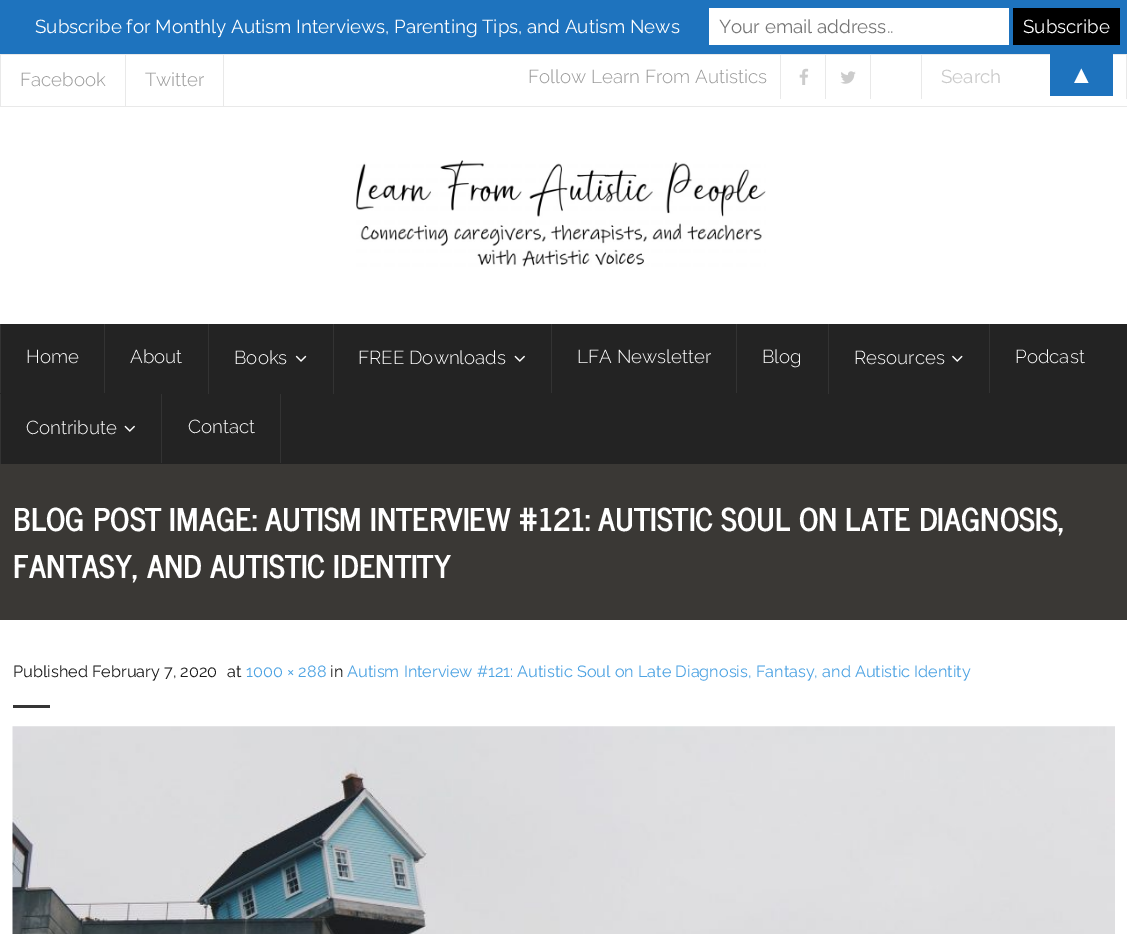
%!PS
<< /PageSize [1127 934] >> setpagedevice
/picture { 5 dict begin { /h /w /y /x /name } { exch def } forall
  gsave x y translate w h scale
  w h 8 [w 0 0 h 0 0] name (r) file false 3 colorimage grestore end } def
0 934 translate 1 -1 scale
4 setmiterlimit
1 setgray
0 0 1127 934 rectfill
0.118 0.451 0.745 setrgbcolor
0 0 1127 54 rectfill
/Raleway-Regular [18.75 0 0 -18.75 0 0] selectfont
1 setgray
35 33 moveto (Subscribe for Monthly Autism Interviews, Parenting Tips, and Autism News) show
709 8 300 37 rectfill
0.459 setgray
719 33 moveto (Your email address..) show
0 setgray
1013 8 107 37 rectfill
1 setgray
1023 33 moveto (Subscribe) show
0.914 setgray
0 54 1127 1 rectfill
0.118 0.451 0.745 setrgbcolor
1050 54 63 42 rectfill
/LiberationSans-Regular [25 0 0 -25 0 0] selectfont
1 setgray
1069 83 moveto (▲) show
0.914 setgray
0 106 1127 1 rectfill
0 55 1 51 rectfill
/Raleway-Light [18.75 0 0 -18.75 0 0] selectfont
0.6 setgray
20 86 moveto (Facebook) show
0.914 setgray
223 55 1 51 rectfill
125 55 1 51 rectfill
0.6 setgray
145 86 moveto (Twitter) show
528 83 moveto (Follow Learn From Autistics) show
0.914 setgray
780 55 1 44 rectfill
(img1.rgb) 799 68 10 17 picture
870 55 1 44 rectfill
825 55 1 44 rectfill
(img2.rgb) 840 71 16 13 picture
1126 55 1 44 rectfill
921 55 1 44 rectfill
/Raleway-Regular [18.75 0 0 -18.75 0 0] selectfont
0.792 setgray
941 83 moveto (Search) show
(img3.rgb) 356 160 410 107 picture
0.137 setgray
0 324 1127 140 rectfill
0.2 setgray
0 324 1 69 rectfill
/Raleway-Light [18.75 0 0 -18.75 0 0] selectfont
1 setgray
26 363 moveto (Home) show
0.2 setgray
104 324 1 69 rectfill
1 setgray
130 363 moveto (About) show
0.2 setgray
208 324 1 70 rectfill
1 setgray
234 364 moveto (Books) show
(img4.rgb) 295 355 12 7 picture
0.2 setgray
333 324 1 70 rectfill
1 setgray
358 364 moveto (FREE Downloads) show
(img5.rgb) 514 355 11 7 picture
0.2 setgray
551 324 1 69 rectfill
1 setgray
577 363 moveto (LFA Newsletter) show
0.2 setgray
736 324 1 69 rectfill
1 setgray
762 363 moveto (Blog) show
0.2 setgray
828 324 1 70 rectfill
1 setgray
854 364 moveto (Resources) show
(img6.rgb) 952 355 11 7 picture
0.2 setgray
989 324 1 69 rectfill
1 setgray
1015 363 moveto (Podcast) show
0.2 setgray
0 394 1 70 rectfill
1 setgray
26 434 moveto (Contribute) show
(img5.rgb) 124 425 11 7 picture
0.2 setgray
280 394 1 69 rectfill
161 394 1 69 rectfill
1 setgray
188 433 moveto (Contact) show
0.227 0.22 0.208 setrgbcolor
0 464 1127 156 rectfill
/NewsCycle-Bold [31.25 0 0 -31.25 0 0] selectfont
1 setgray
13 531 moveto (BLOG POST IMAGE: AUTISM INTERVIEW #121: AUTISTIC SOUL ON LATE DIAGNOSIS,) show
13 578 moveto (FANTASY, AND AUTISTIC IDENTITY) show
/Raleway-Regular [16.25 0 0 -16.25 0 0] selectfont
0.102 setgray
13 677 moveto (Published February 7, 2020) show
227 677 moveto (at) show
0.302 0.639 0.89 setrgbcolor
246 677 moveto (1000 × 288) show
0.102 setgray
330 677 moveto (in) show
0.302 0.639 0.89 setrgbcolor
347 677 moveto (Autism Interview #121: Autistic Soul on Late Diagnosis, Fantasy, and Autistic Identity) show
0.208 setgray
13 705 37 3 rectfill
(img7.rgb) 12 726 1103 208 picture
showpage
